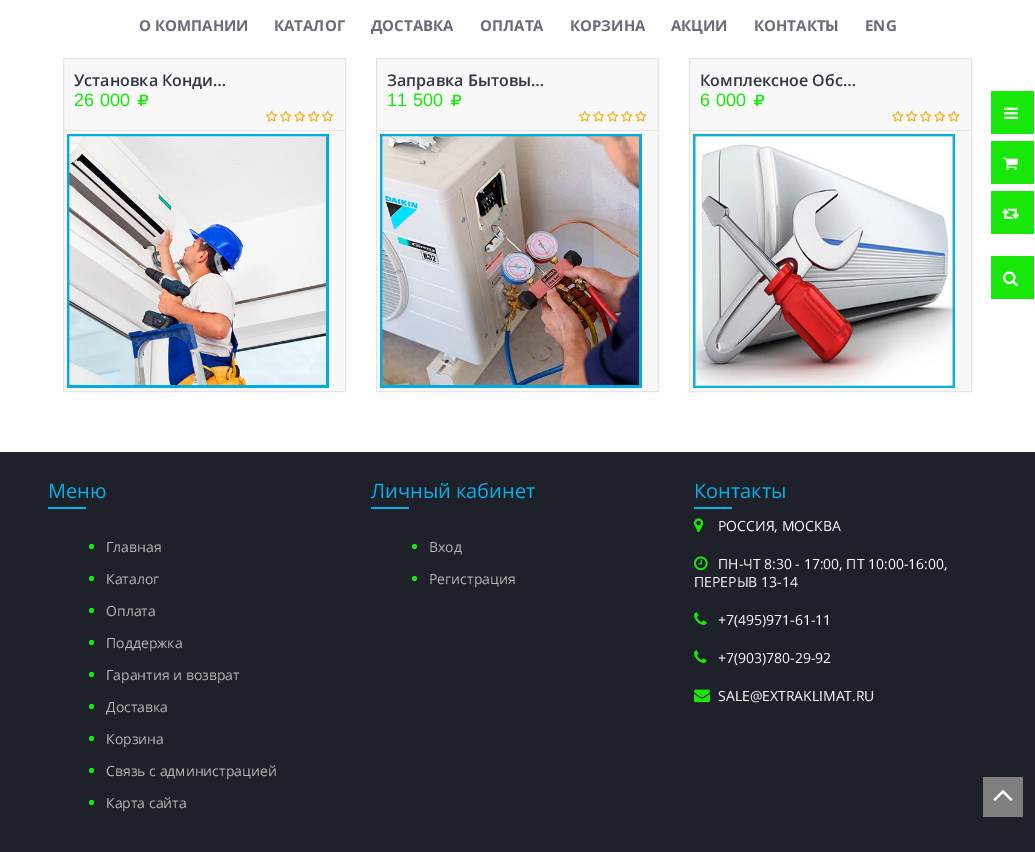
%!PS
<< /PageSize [1035 852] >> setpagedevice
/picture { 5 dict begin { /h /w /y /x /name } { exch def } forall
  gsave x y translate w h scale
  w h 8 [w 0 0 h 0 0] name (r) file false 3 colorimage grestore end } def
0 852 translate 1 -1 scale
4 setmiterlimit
1 setgray
0 0 1035 852 rectfill
/OpenSans-Bold [15 0 0 -15 0 0] selectfont
0.412 0.424 0.475 setrgbcolor
139 31 moveto (О КОМПАНИИ) show
274 31 moveto (КАТАЛОГ) show
371 31 moveto (ДОСТАВКА) show
480 31 moveto (ОПЛАТА) show
570 31 moveto (КОРЗИНА) show
671 31 moveto (АКЦИИ) show
754 31 moveto (КОНТАКТЫ) show
865 31 moveto (ENG) show
0.973 setgray
newpath 63.5 58.5 moveto 345.5 58.5 lineto 345.5 391.5 lineto 63.5 391.5 lineto closepath gsave fill grestore
0.898 setgray
stroke
64 130 281 1 rectfill
/OpenSans-SemiBold [16 0 0 -16 0 0] selectfont
0.2 0.216 0.267 setrgbcolor
74 86 moveto (Установка Конди…) show
/LiberationSans-Regular [18 0 0 -18 0 0] selectfont
0.09 0.906 0.035 setrgbcolor
74 106 moveto 0.25 0 (26 000) ashow
(img1.rgb) 138 94 11 12 picture
(img2.rgb) 266 110 68 12 picture
(img3.rgb) 67 134 262 254 picture
0.973 setgray
newpath 376.5 58.5 moveto 658.5 58.5 lineto 658.5 391.5 lineto 376.5 391.5 lineto closepath gsave fill grestore
0.898 setgray
stroke
377 130 281 1 rectfill
/OpenSans-SemiBold [16 0 0 -16 0 0] selectfont
0.2 0.216 0.267 setrgbcolor
387 86 moveto (Заправка Бытовы…) show
/LiberationSans-Regular [18 0 0 -18 0 0] selectfont
0.09 0.906 0.035 setrgbcolor
387 106 moveto 0.25 0 (11 500) ashow
(img1.rgb) 451 94 11 12 picture
(img2.rgb) 579 110 68 12 picture
(img4.rgb) 380 134 262 254 picture
0.973 setgray
newpath 689.5 58.5 moveto 971.5 58.5 lineto 971.5 391.5 lineto 689.5 391.5 lineto closepath gsave fill grestore
0.898 setgray
stroke
690 130 281 1 rectfill
/OpenSans-SemiBold [16 0 0 -16 0 0] selectfont
0.2 0.216 0.267 setrgbcolor
700 86 moveto (Комплексное Обс…) show
/LiberationSans-Regular [18 0 0 -18 0 0] selectfont
0.09 0.906 0.035 setrgbcolor
700 106 moveto 0.25 0 (6 000) ashow
(img1.rgb) 754 94 11 12 picture
(img2.rgb) 892 110 68 12 picture
(img5.rgb) 693 134 262 254 picture
991 91 43 43 rectfill
(img6.rgb) 1004 107 14 12 picture
991 141 43 43 rectfill
(img7.rgb) 1003 157 15 14 picture
991 191 43 43 rectfill
(img8.rgb) 1002 208 18 11 picture
991 256 43 43 rectfill
(img9.rgb) 1003 271 15 16 picture
0.118 0.129 0.165 setrgbcolor
0 452 1035 400 rectfill
/OpenSans-Regular [20 0 0 -20 0 0] selectfont
0.035 0.686 0.906 setrgbcolor
48 498 moveto (Меню) show
48 507 38 2 rectfill
0.09 0.906 0.035 setrgbcolor
newpath 91.5 546.5 2.5 0 360 arc closepath fill
/OpenSans-Regular [14 0 0 -14 0 0] selectfont
0.722 setgray
106 552 moveto (Главная) show
0.09 0.906 0.035 setrgbcolor
newpath 91.5 578.5 2.5 0 360 arc closepath fill
0.722 setgray
106 584 moveto (Каталог) show
0.09 0.906 0.035 setrgbcolor
newpath 91.5 610.5 2.5 0 360 arc closepath fill
0.722 setgray
106 616 moveto (Оплата) show
0.09 0.906 0.035 setrgbcolor
newpath 91.5 642.5 2.5 0 360 arc closepath fill
0.722 setgray
106 648 moveto (Поддержка) show
0.09 0.906 0.035 setrgbcolor
newpath 91.5 674.5 2.5 0 360 arc closepath fill
0.722 setgray
106 680 moveto (Гарантия и возврат) show
0.09 0.906 0.035 setrgbcolor
newpath 91.5 706.5 2.5 0 360 arc closepath fill
0.722 setgray
106 712 moveto (Доставка) show
0.09 0.906 0.035 setrgbcolor
newpath 91.5 738.5 2.5 0 360 arc closepath fill
0.722 setgray
106 744 moveto (Корзина) show
0.09 0.906 0.035 setrgbcolor
newpath 91.5 770.5 2.5 0 360 arc closepath fill
0.722 setgray
106 776 moveto (Связь с администрацией) show
0.09 0.906 0.035 setrgbcolor
newpath 91.5 802.5 2.5 0 360 arc closepath fill
0.722 setgray
106 808 moveto (Карта сайта) show
/OpenSans-Regular [20 0 0 -20 0 0] selectfont
0.035 0.686 0.906 setrgbcolor
371 498 moveto (Личный кабинет) show
371 507 38 2 rectfill
0.09 0.906 0.035 setrgbcolor
newpath 414.5 546.5 2.5 0 360 arc closepath fill
/OpenSans-Regular [14 0 0 -14 0 0] selectfont
0.722 setgray
429 552 moveto (Вход) show
0.09 0.906 0.035 setrgbcolor
newpath 414.5 578.5 2.5 0 360 arc closepath fill
0.722 setgray
429 584 moveto (Регистрация) show
/OpenSans-Regular [20 0 0 -20 0 0] selectfont
0.035 0.686 0.906 setrgbcolor
694 498 moveto (Контакты) show
694 507 38 2 rectfill
(img10.rgb) 694 518 10 15 picture
/OpenSans-Regular [14 0 0 -14 0 0] selectfont
1 setgray
718 531 moveto (РОССИЯ, МОСКВА) show
(img11.rgb) 694 556 14 15 picture
718 569 moveto (ПН-ЧТ 8:30 - 17:00, ПТ 10:00-16:00,) show
694 587 moveto (ПЕРЕРЫВ 13-14) show
(img12.rgb) 694 612 13 13 picture
718 625 moveto (+7\(495\)971-61-11) show
(img12.rgb) 694 650 13 13 picture
718 663 moveto (+7\(903\)780-29-92) show
(img13.rgb) 694 689 16 14 picture
718 701 moveto (SALE@EXTRAKLIMAT.RU) show
0.498 setgray
983 777 40 40 rectfill
(img14.rgb) 993 789 20 12 picture
showpage
